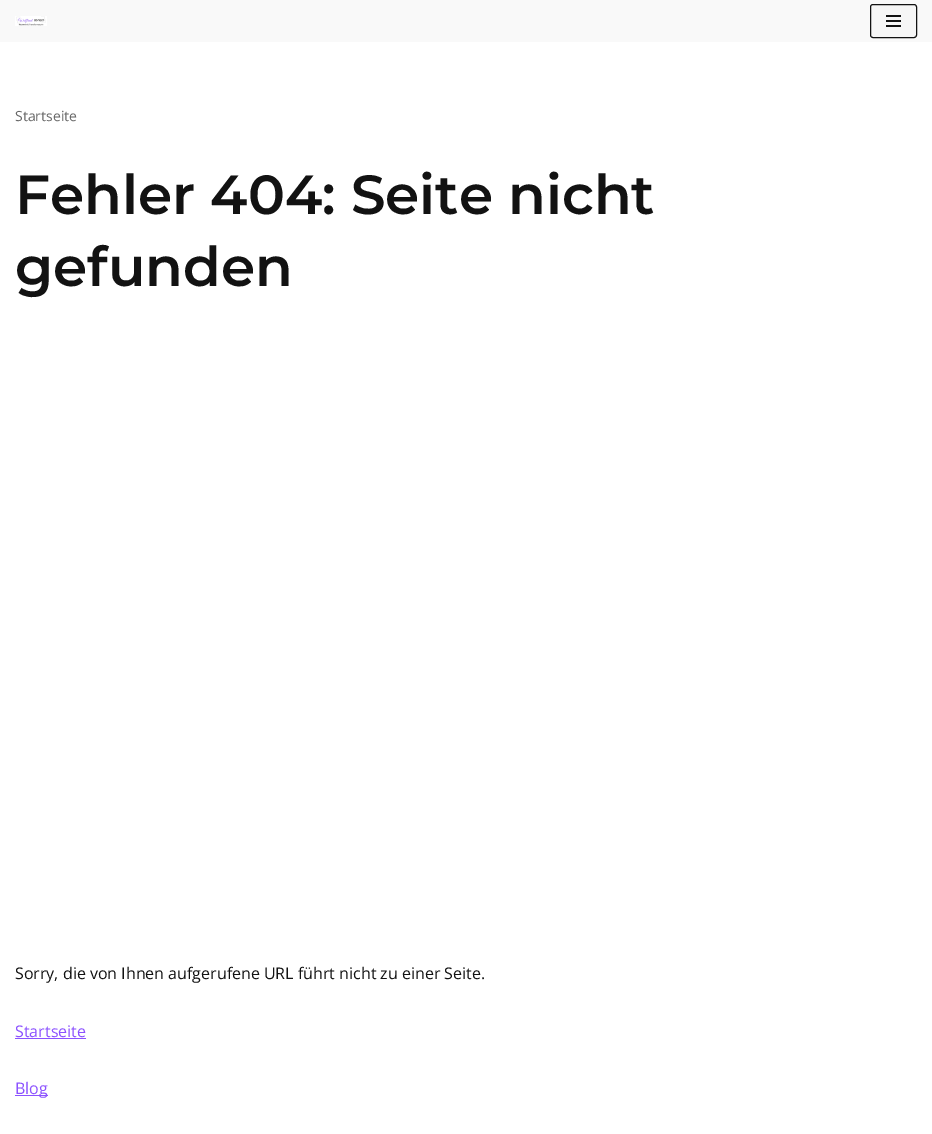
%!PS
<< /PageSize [932 1134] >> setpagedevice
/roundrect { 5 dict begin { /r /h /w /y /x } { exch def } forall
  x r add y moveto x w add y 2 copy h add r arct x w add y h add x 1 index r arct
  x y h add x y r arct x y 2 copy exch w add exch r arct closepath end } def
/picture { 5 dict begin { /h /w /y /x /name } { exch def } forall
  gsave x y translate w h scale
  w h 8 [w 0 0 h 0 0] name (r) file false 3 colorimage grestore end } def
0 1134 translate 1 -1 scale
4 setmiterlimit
1 setgray
0 0 932 1134 rectfill
0.976 setgray
0 0 932 42 rectfill
(img1.rgb) 15 16 32 10 picture
0.965 setgray
870.5 4.5 46 33 2.5 roundrect gsave fill grestore
0.071 setgray
stroke
886 15 15 2 rectfill
886 20 15 2 rectfill
886 25 15 2 rectfill
/OpenSans-Regular [14 0 0 -14 0 0] selectfont
0.404 setgray
15 121 moveto (Startseite) show
/Montserrat-SemiBold [55 0 0 -55 0 0] selectfont
0.071 setgray
15 214 moveto (Fehler 404: Seite nicht) show
15 286 moveto (gefunden) show
/OpenSans-Regular [16 0 0 -16 0 0] selectfont
15 979 moveto (Sorry, die von Ihnen aufgerufene URL führt nicht zu einer Seite.) show
0.549 0.322 1 setrgbcolor
15 1037 moveto (Startseite) show
15 1038 71 1 rectfill
15 1095 33 1 rectfill
15 1094 moveto (Blog) show
showpage
